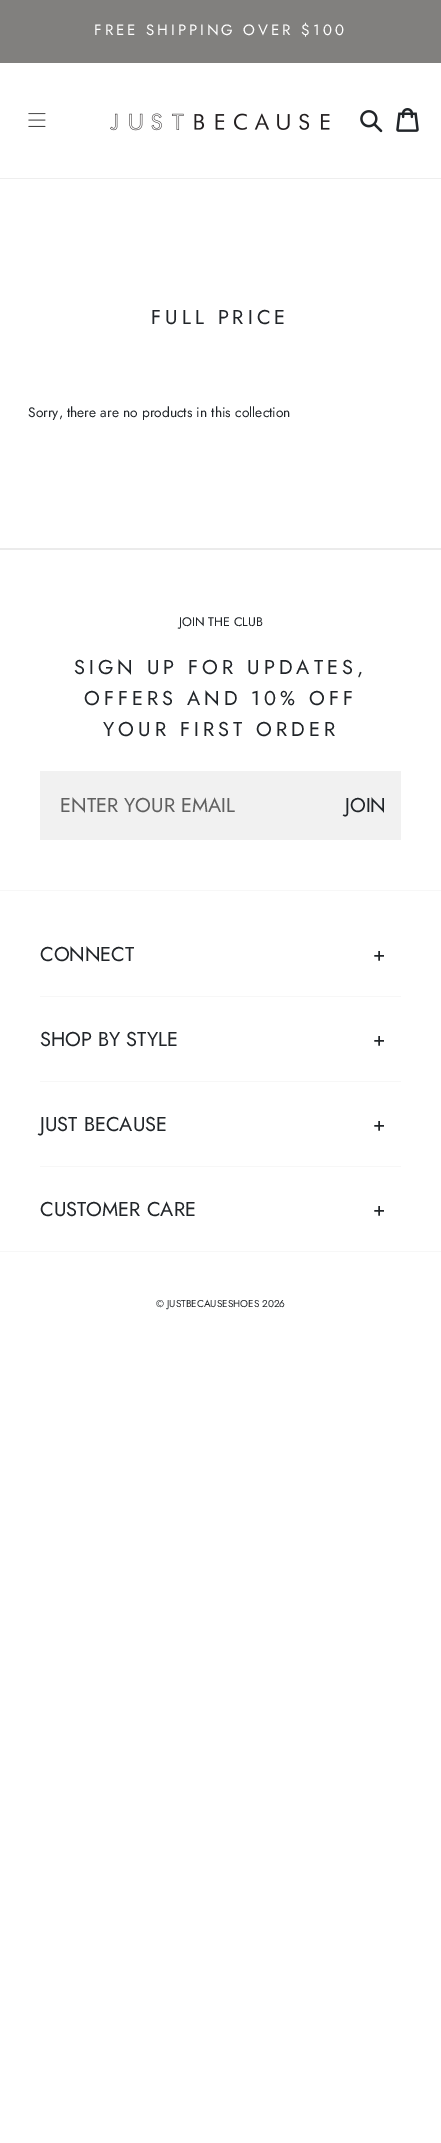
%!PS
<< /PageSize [441 2143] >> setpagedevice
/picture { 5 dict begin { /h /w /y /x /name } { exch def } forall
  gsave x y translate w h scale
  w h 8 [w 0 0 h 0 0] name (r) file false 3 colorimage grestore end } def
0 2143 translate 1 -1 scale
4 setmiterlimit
1 setgray
0 0 441 2143 rectfill
0.933 setgray
0 178 441 1 rectfill
0.506 0.502 0.494 setrgbcolor
0 0 441 63 rectfill
/Jost-Regular [15 0 0 -15 0 0] selectfont
1 setgray
94 35 moveto 3 0 (FREE SHIPPING OVER $100) ashow
(img1.rgb) 28 113 18 14 picture
(img2.rgb) 110 113 220 18 picture
(img3.rgb) 360 110 23 23 picture
(img4.rgb) 396 108 23 24 picture
/Jost-Regular [20 0 0 -20 0 0] selectfont
0.129 0.145 0.161 setrgbcolor
151 324 moveto 4 0 (FULL PRICE) ashow
/Jost-Regular [13.75 0 0 -13.75 0 0] selectfont
28 417 moveto (Sorry, there are no products in this collection) show
0.922 setgray
0 548 441 2 rectfill
0.969 setgray
0 890 441 1 rectfill
/Jost-Regular [12.5 0 0 -12.5 0 0] selectfont
0.129 0.145 0.161 setrgbcolor
179 626 moveto (JOIN THE CLUB) show
/Jost-Regular [20 0 0 -20 0 0] selectfont
74 674 moveto 4 0 (SIGN UP FOR UPDATES,) ashow
84 705 moveto 4 0 (OFFERS AND 10% OFF) ashow
103 736 moveto 4 0 (YOUR FIRST ORDER) ashow
0.945 setgray
40 771 361 69 rectfill
0.376 setgray
60 812 moveto (ENTER YOUR EMAIL) show
0.129 0.145 0.161 setrgbcolor
345 812 moveto (JOIN) show
0.969 setgray
40 996 361 1 rectfill
0.129 0.145 0.161 setrgbcolor
40 961 moveto (CONNECT) show
373 961 moveto (+) show
0.969 setgray
40 1081 361 1 rectfill
0.129 0.145 0.161 setrgbcolor
40 1046 moveto (SHOP BY STYLE) show
373 1046 moveto (+) show
0.969 setgray
40 1166 361 1 rectfill
0.129 0.145 0.161 setrgbcolor
40 1131 moveto (JUST BECAUSE) show
373 1131 moveto (+) show
40 1216 moveto (CUSTOMER CARE) show
373 1216 moveto (+) show
0.969 setgray
0 1251 441 1 rectfill
/Jost-Regular [10 0 0 -10 0 0] selectfont
0.129 0.145 0.161 setrgbcolor
156 1307 moveto (© JUSTBECAUSESHOES 2026) show
showpage
